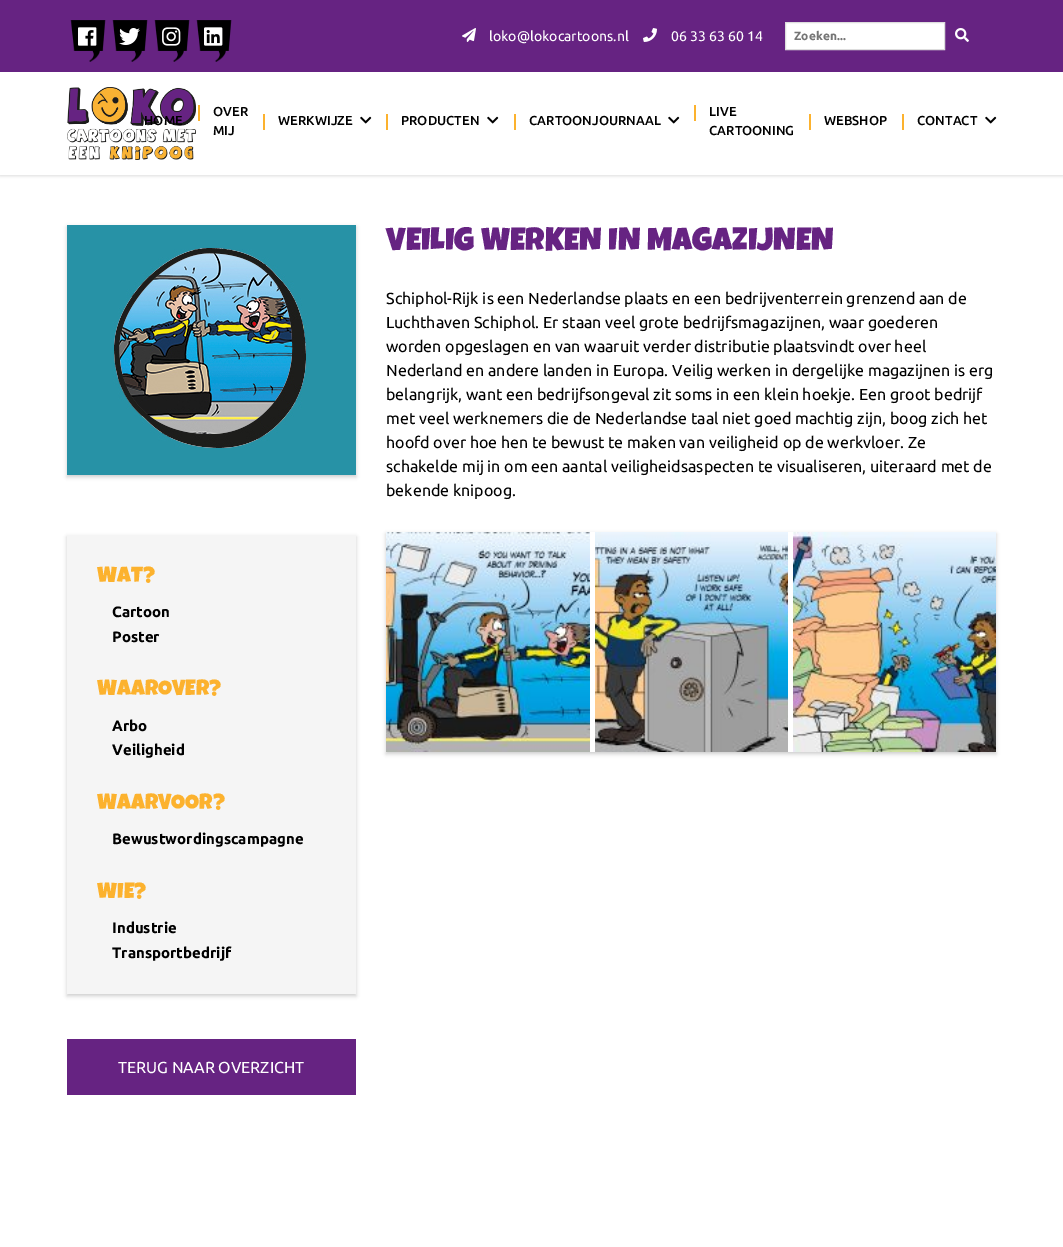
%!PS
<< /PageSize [1063 1247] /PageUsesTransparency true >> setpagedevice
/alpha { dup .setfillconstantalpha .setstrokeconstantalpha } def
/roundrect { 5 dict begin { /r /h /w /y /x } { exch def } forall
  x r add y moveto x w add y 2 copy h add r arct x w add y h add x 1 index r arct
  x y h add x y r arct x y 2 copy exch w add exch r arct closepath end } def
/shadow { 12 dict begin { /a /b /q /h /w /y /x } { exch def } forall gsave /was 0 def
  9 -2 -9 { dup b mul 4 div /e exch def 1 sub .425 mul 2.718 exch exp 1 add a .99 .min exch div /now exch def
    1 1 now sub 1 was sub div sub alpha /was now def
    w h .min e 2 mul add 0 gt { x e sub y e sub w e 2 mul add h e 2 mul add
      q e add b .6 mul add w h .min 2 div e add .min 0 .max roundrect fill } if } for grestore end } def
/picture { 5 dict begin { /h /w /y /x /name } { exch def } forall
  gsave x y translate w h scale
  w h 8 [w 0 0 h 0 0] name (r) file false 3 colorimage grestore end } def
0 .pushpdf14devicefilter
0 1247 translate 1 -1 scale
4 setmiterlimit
1 setgray
0 0 1063 1247 rectfill
gsave
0 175 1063 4 rectclip
0.867 setgray
0 1 1063 175 0 1.5 1 shadow
grestore
0.4 0.137 0.51 setrgbcolor
0 0 1063 72 rectfill
(img1.rgb) 70 20 36 42 picture
(img2.rgb) 78 27 19 19 picture
(img1.rgb) 112 20 36 42 picture
(img3.rgb) 119 28 21 17 picture
(img1.rgb) 154 20 36 42 picture
(img4.rgb) 162 27 19 19 picture
(img1.rgb) 196 20 36 42 picture
(img5.rgb) 204 27 19 19 picture
(img6.rgb) 462 28 14 14 picture
/Ubuntu-Regular [14 0 0 -14 0 0] selectfont
1 setgray
489 41 moveto (loko@lokocartoons.nl) show
(img7.rgb) 643 28 14 14 picture
671 41 moveto (06 33 63 60 14) show
newpath 785.5 22.5 moveto 944.5 22.5 lineto 944.5 49.5 lineto 785.5 49.5 lineto closepath gsave fill grestore
0.867 setgray
stroke
/Ubuntu-Bold [12 0 0 -12 0 0] selectfont
0.459 setgray
794 40 moveto (Zoeken...) show
(img8.rgb) 955 28 14 14 picture
(img9.rgb) 67 87 129 73 picture
/Ubuntu-Medium [13 0 0 -13 0 0] selectfont
0 setgray
144 125 moveto (HOME) show
0.988 0.698 0.18 setrgbcolor
198 105 2 16 rectfill
0 setgray
213 116 moveto (OVER) show
213 135 moveto (MIJ) show
0.988 0.698 0.18 setrgbcolor
263 114 2 16 rectfill
0 setgray
278 125 moveto (WERKWIJZE) show
(img10.rgb) 360 116 12 8 picture
0.988 0.698 0.18 setrgbcolor
386 114 2 16 rectfill
0 setgray
401 125 moveto (PRODUCTEN) show
(img10.rgb) 487 116 12 8 picture
0.988 0.698 0.18 setrgbcolor
514 114 2 16 rectfill
0 setgray
529 125 moveto (CARTOONJOURNAAL) show
(img10.rgb) 668 116 12 8 picture
0.988 0.698 0.18 setrgbcolor
694 105 2 16 rectfill
0 setgray
709 116 moveto (LIVE) show
709 135 moveto (CARTOONING) show
0.988 0.698 0.18 setrgbcolor
809 114 2 16 rectfill
0 setgray
824 125 moveto (WEBSHOP) show
0.988 0.698 0.18 setrgbcolor
902 114 2 16 rectfill
0 setgray
917 125 moveto (CONTACT) show
(img10.rgb) 985 116 12 8 picture
/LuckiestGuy-Regular [32 0 0 -32 0 0] selectfont
0.4 0.137 0.51 setrgbcolor
386 250 moveto (VEILIG WERKEN IN MAGAZIJNEN) show
/Ubuntu-Regular [16 0 0 -16 0 0] selectfont
0 setgray
386 304 moveto (Schiphol-Rijk is een Nederlandse plaats en een bedrijventerrein grenzend aan de) show
386 328 moveto (Luchthaven Schiphol. Er staan veel grote bedrijfsmagazijnen, waar goederen) show
386 352 moveto (worden opgeslagen en van waaruit verder distributie plaatsvindt over heel) show
386 376 moveto (Nederland en andere landen in Europa. Veilig werken in dergelijke magazijnen is erg) show
386 400 moveto (belangrijk, want een bedrijfsongeval zit soms in een klein hoekje. Een groot bedrijf) show
386 424 moveto (met veel werknemers die de Nederlandse taal niet goed machtig zijn, boog zich het) show
386 448 moveto (hoofd over hoe hen te bewust te maken van veiligheid op de werkvloer. Ze) show
386 472 moveto (schakelde mij in om een aantal veiligheidsaspecten te visualiseren, uiteraard met de) show
386 496 moveto (bekende knipoog.) show
gsave
newpath 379 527 moveto 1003 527 lineto 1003 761 lineto 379 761 lineto closepath 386 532 moveto 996 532 lineto 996 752 lineto 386 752 lineto closepath eoclip newpath
0.8 setgray
386 534 610 220 0 2 1 shadow
grestore
(img11.rgb) 386 532 204 220 picture
(img12.rgb) 595 532 193 220 picture
(img13.rgb) 793 532 203 220 picture
0.8 setgray
67 227 289 250 0 2 1 shadow
0.153 0.573 0.651 setrgbcolor
67 225 289 250 rectfill
(img14.rgb) 113 248 194 200 picture
0.8 setgray
67 537 289 459 0 2 1 shadow
0.961 setgray
67 535 289 459 rectfill
/LuckiestGuy-Regular [22 0 0 -22 0 0] selectfont
0.988 0.698 0.18 setrgbcolor
97 582 moveto (WAT?) show
/Ubuntu-Bold [15 0 0 -15 0 0] selectfont
0 setgray
112 617 moveto (Cartoon) show
112 642 moveto (Poster) show
/LuckiestGuy-Regular [22 0 0 -22 0 0] selectfont
0.988 0.698 0.18 setrgbcolor
97 695 moveto (WAAROVER?) show
/Ubuntu-Bold [15 0 0 -15 0 0] selectfont
0 setgray
112 731 moveto (Arbo) show
112 755 moveto (Veiligheid) show
/LuckiestGuy-Regular [22 0 0 -22 0 0] selectfont
0.988 0.698 0.18 setrgbcolor
97 809 moveto (WAARVOOR?) show
/Ubuntu-Bold [15 0 0 -15 0 0] selectfont
0 setgray
112 844 moveto (Bewustwordingscampagne) show
/LuckiestGuy-Regular [22 0 0 -22 0 0] selectfont
0.988 0.698 0.18 setrgbcolor
97 898 moveto (WIE?) show
/Ubuntu-Bold [15 0 0 -15 0 0] selectfont
0 setgray
112 933 moveto (Industrie) show
112 958 moveto (Transportbedrijf) show
0.4 0.137 0.51 setrgbcolor
67 1039 289 56 rectfill
/Ubuntu-Regular [16 0 0 -16 0 0] selectfont
1 setgray
118 1073 moveto (TERUG NAAR OVERZICHT) show
.poppdf14devicefilter showpage
